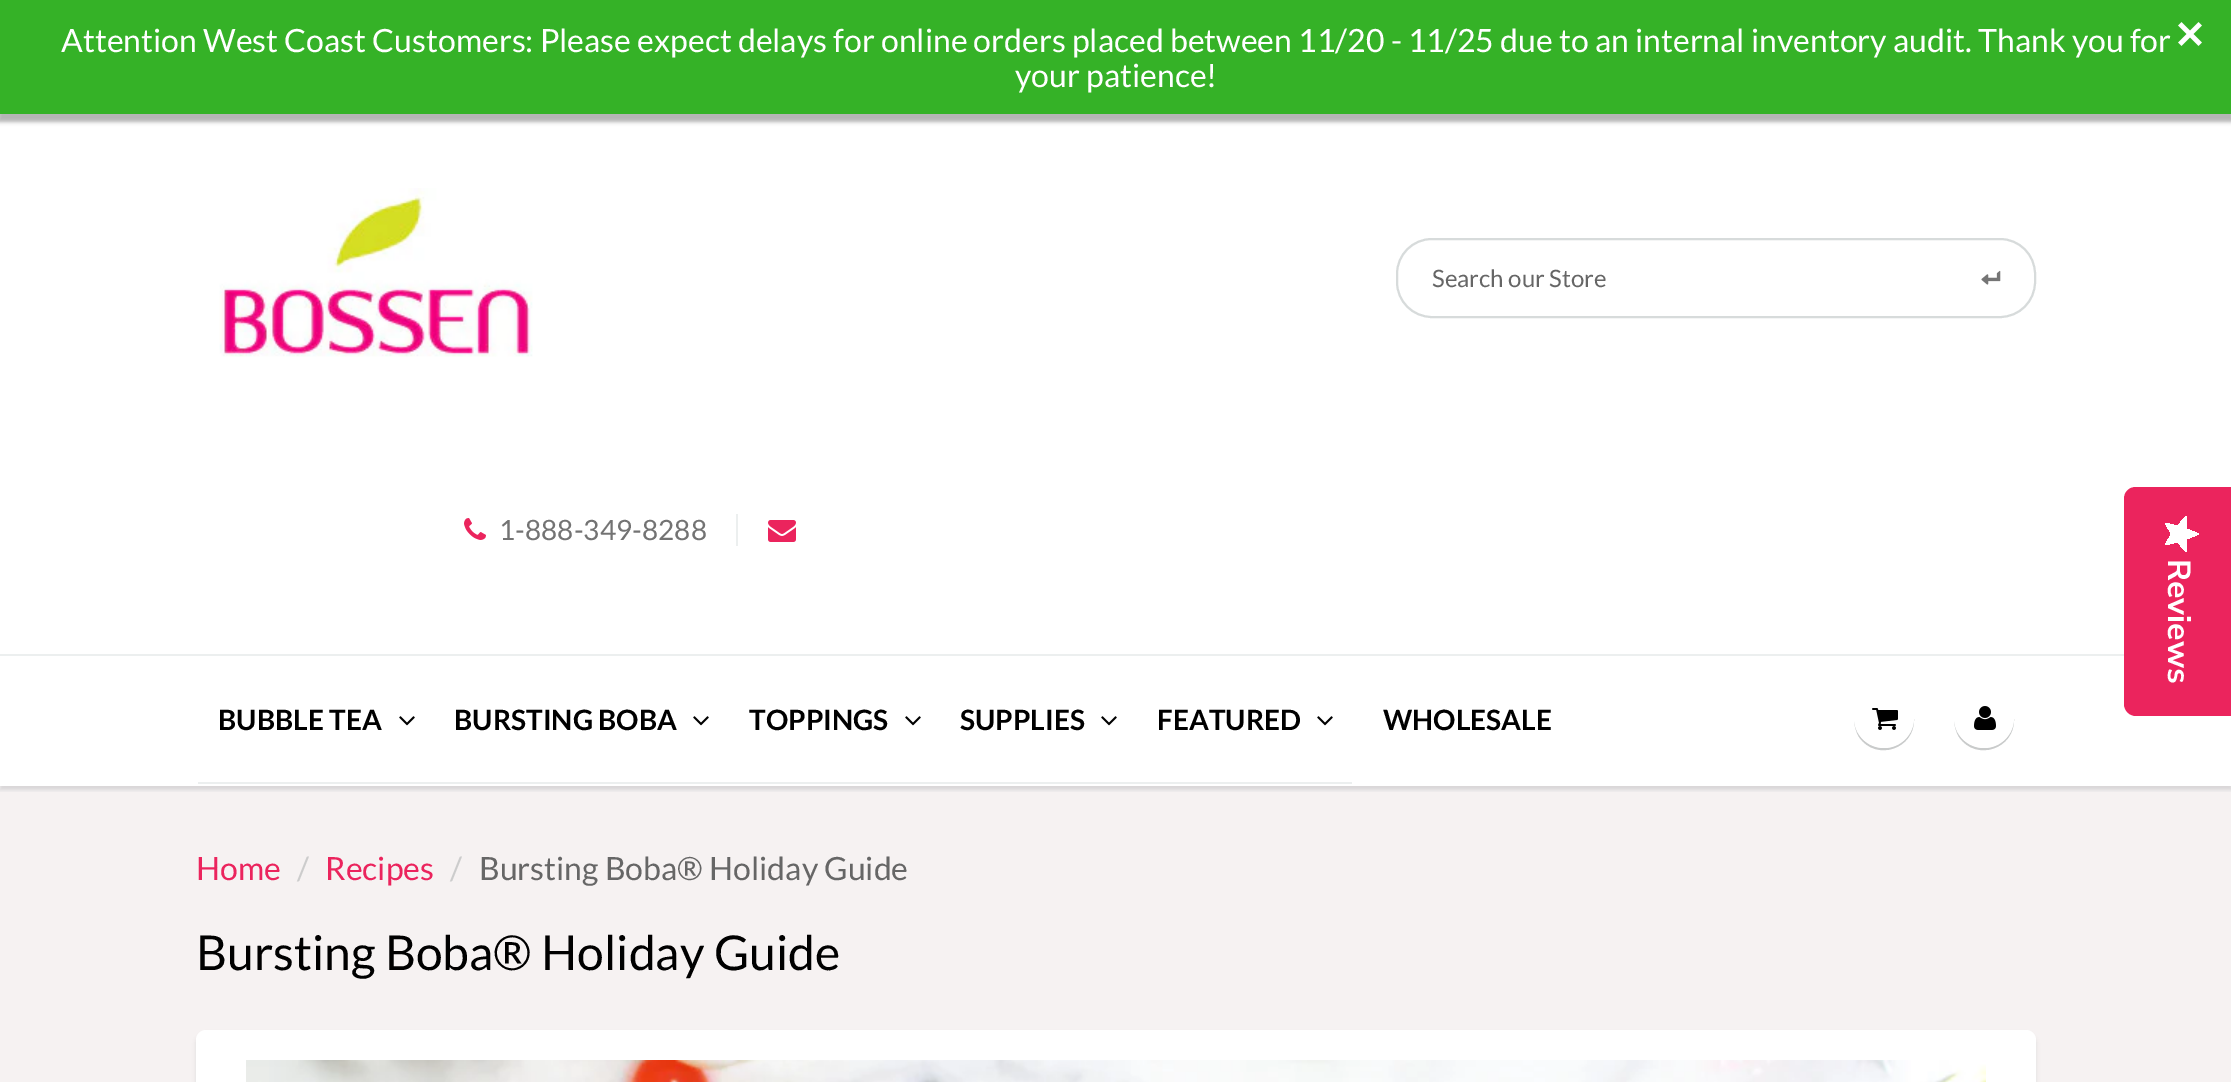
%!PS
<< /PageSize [2231 1082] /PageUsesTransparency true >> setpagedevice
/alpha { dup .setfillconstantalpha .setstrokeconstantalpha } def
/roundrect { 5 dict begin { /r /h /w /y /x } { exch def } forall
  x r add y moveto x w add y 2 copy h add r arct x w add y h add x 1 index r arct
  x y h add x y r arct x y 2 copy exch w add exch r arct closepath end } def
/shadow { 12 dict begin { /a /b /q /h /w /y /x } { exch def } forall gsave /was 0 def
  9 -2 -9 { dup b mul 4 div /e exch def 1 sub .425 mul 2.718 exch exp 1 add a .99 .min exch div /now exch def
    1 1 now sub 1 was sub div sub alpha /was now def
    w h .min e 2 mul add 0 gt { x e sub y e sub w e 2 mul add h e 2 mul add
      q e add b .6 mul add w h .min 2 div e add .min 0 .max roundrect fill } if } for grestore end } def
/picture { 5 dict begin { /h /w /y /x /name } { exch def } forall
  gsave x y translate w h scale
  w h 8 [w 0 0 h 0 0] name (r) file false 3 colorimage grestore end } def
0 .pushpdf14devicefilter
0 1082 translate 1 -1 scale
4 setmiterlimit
1 setgray
0 0 2231 1082 rectfill
0 setgray
-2 4 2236 118 0 2 0.3 shadow
0.208 0.698 0.153 setrgbcolor
0 0 2231 114 rectfill
/Lato-Regular [32 0 0 -32 0 0] selectfont
1 setgray
61 52 moveto (Attention West Coast Customers: Please expect delays for online orders placed between 11/20 - 11/25 due to an internal inventory audit. Thank you for) show
1015 87 moveto (your patience!) show
(img1.rgb) 2178 22 24 24 picture
(img2.rgb) 219 188 314 169 picture
0.843 0.859 0.859 setrgbcolor
2 setlinewidth
1397 239 638 78 35 roundrect stroke
/Lato-Regular [24 0 0 -24 0 0] selectfont
0.4 setgray
1432 287 moveto (Search our Store) show
(img3.rgb) 1981 270 20 15 picture
(img4.rgb) 464 518 22 22 picture
/Lato-Regular [28 0 0 -28 0 0] selectfont
0.451 setgray
499 540 moveto (1-888-349-8288) show
0.925 0.937 0.937 setrgbcolor
736 514 2 32 rectfill
(img5.rgb) 768 520 28 22 picture
0.965 0.949 0.949 setrgbcolor
0 786 2231 296 rectfill
gsave
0 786 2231 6 rectclip
0.043 0.098 0.11 setrgbcolor
0 658 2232 132 0 2 0.12 shadow
grestore
0.925 0.937 0.937 setrgbcolor
0 654 2124 2 rectfill
198 782 1154 2 rectfill
/Lato-Bold [28 0 0 -28 0 0] selectfont
0 setgray
218 730 moveto (BUBBLE TEA) show
(img6.rgb) 399 716 16 10 picture
454 730 moveto (BURSTING BOBA) show
(img6.rgb) 693 716 16 10 picture
749 730 moveto (TOPPINGS) show
(img6.rgb) 905 716 16 10 picture
960 730 moveto (SUPPLIES) show
(img6.rgb) 1101 716 16 10 picture
1157 730 moveto (FEATURED) show
(img6.rgb) 1317 716 16 10 picture
1383 730 moveto (WHOLESALE) show
0.788 0.796 0.796 setrgbcolor
newpath 1914 719 moveto 1913 735 1900 748 1884 748 curveto 1868 748 1855 735 1854 719 curveto 1854 725 1856 732 1859 737 curveto 1876 762 1915 749 1914 719 curveto closepath fill
1 setgray
newpath 1884 718 30 0 360 arc closepath fill
(img7.rgb) 1872 708 26 22 picture
0.788 0.796 0.796 setrgbcolor
newpath 2014 719 moveto 2013 735 2000 748 1984 748 curveto 1968 748 1955 735 1954 719 curveto 1954 725 1956 732 1959 737 curveto 1976 762 2015 749 2014 719 curveto closepath fill
1 setgray
newpath 1984 718 30 0 360 arc closepath fill
(img8.rgb) 1974 706 22 24 picture
0.922 0.141 0.365 setrgbcolor
newpath 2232 487 moveto 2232 716 lineto 2136 716 lineto 2129 716 2124 710 2124 704 curveto 2124 499 lineto 2124 492 2129 487 2136 487 curveto closepath fill
gsave newpath 2171.5 534 moveto 2165 545 lineto 2177.5 542 lineto 2186 552 lineto 2187 539 lineto 2199 534 lineto 2187 529 lineto 2186 516 lineto 2177.5 526 lineto 2165 523 lineto closepath clip newpath
<< /ShadingType 2 /ColorSpace /DeviceRGB /Coords [2199 516 2199 552] /Extend [true true] /Function << /FunctionType 2 /Domain [0 1] /C0 [1 1 1] /C1 [1 1 1] /N 1 >> >> shfill grestore
/NunitoSans-ExtraLight [32 0 0 -32 0 0] selectfont
1 setgray
gsave 2168 559 translate 90 rotate 0 0 moveto (Reviews) show grestore
/Lato-Regular [32 0 0 -32 0 0] selectfont
0.922 0.141 0.365 setrgbcolor
196 880 moveto (Home) show
0.8 setgray
297 880 moveto (/) show
0.922 0.141 0.365 setrgbcolor
325 880 moveto (Recipes) show
0.8 setgray
450 880 moveto (/) show
0.4 setgray
479 880 moveto (Bursting Boba® Holiday Guide) show
/Lato-Regular [48 0 0 -48 0 0] selectfont
0 setgray
196 970 moveto (Bursting Boba® Holiday Guide) show
0.043 0.098 0.11 setrgbcolor
196 1034 1840 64 10 2 0.1 shadow
1 setgray
196 1030 1840 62 10 roundrect fill
(img9.rgb) 246 1060 1740 22 picture
.poppdf14devicefilter showpage
